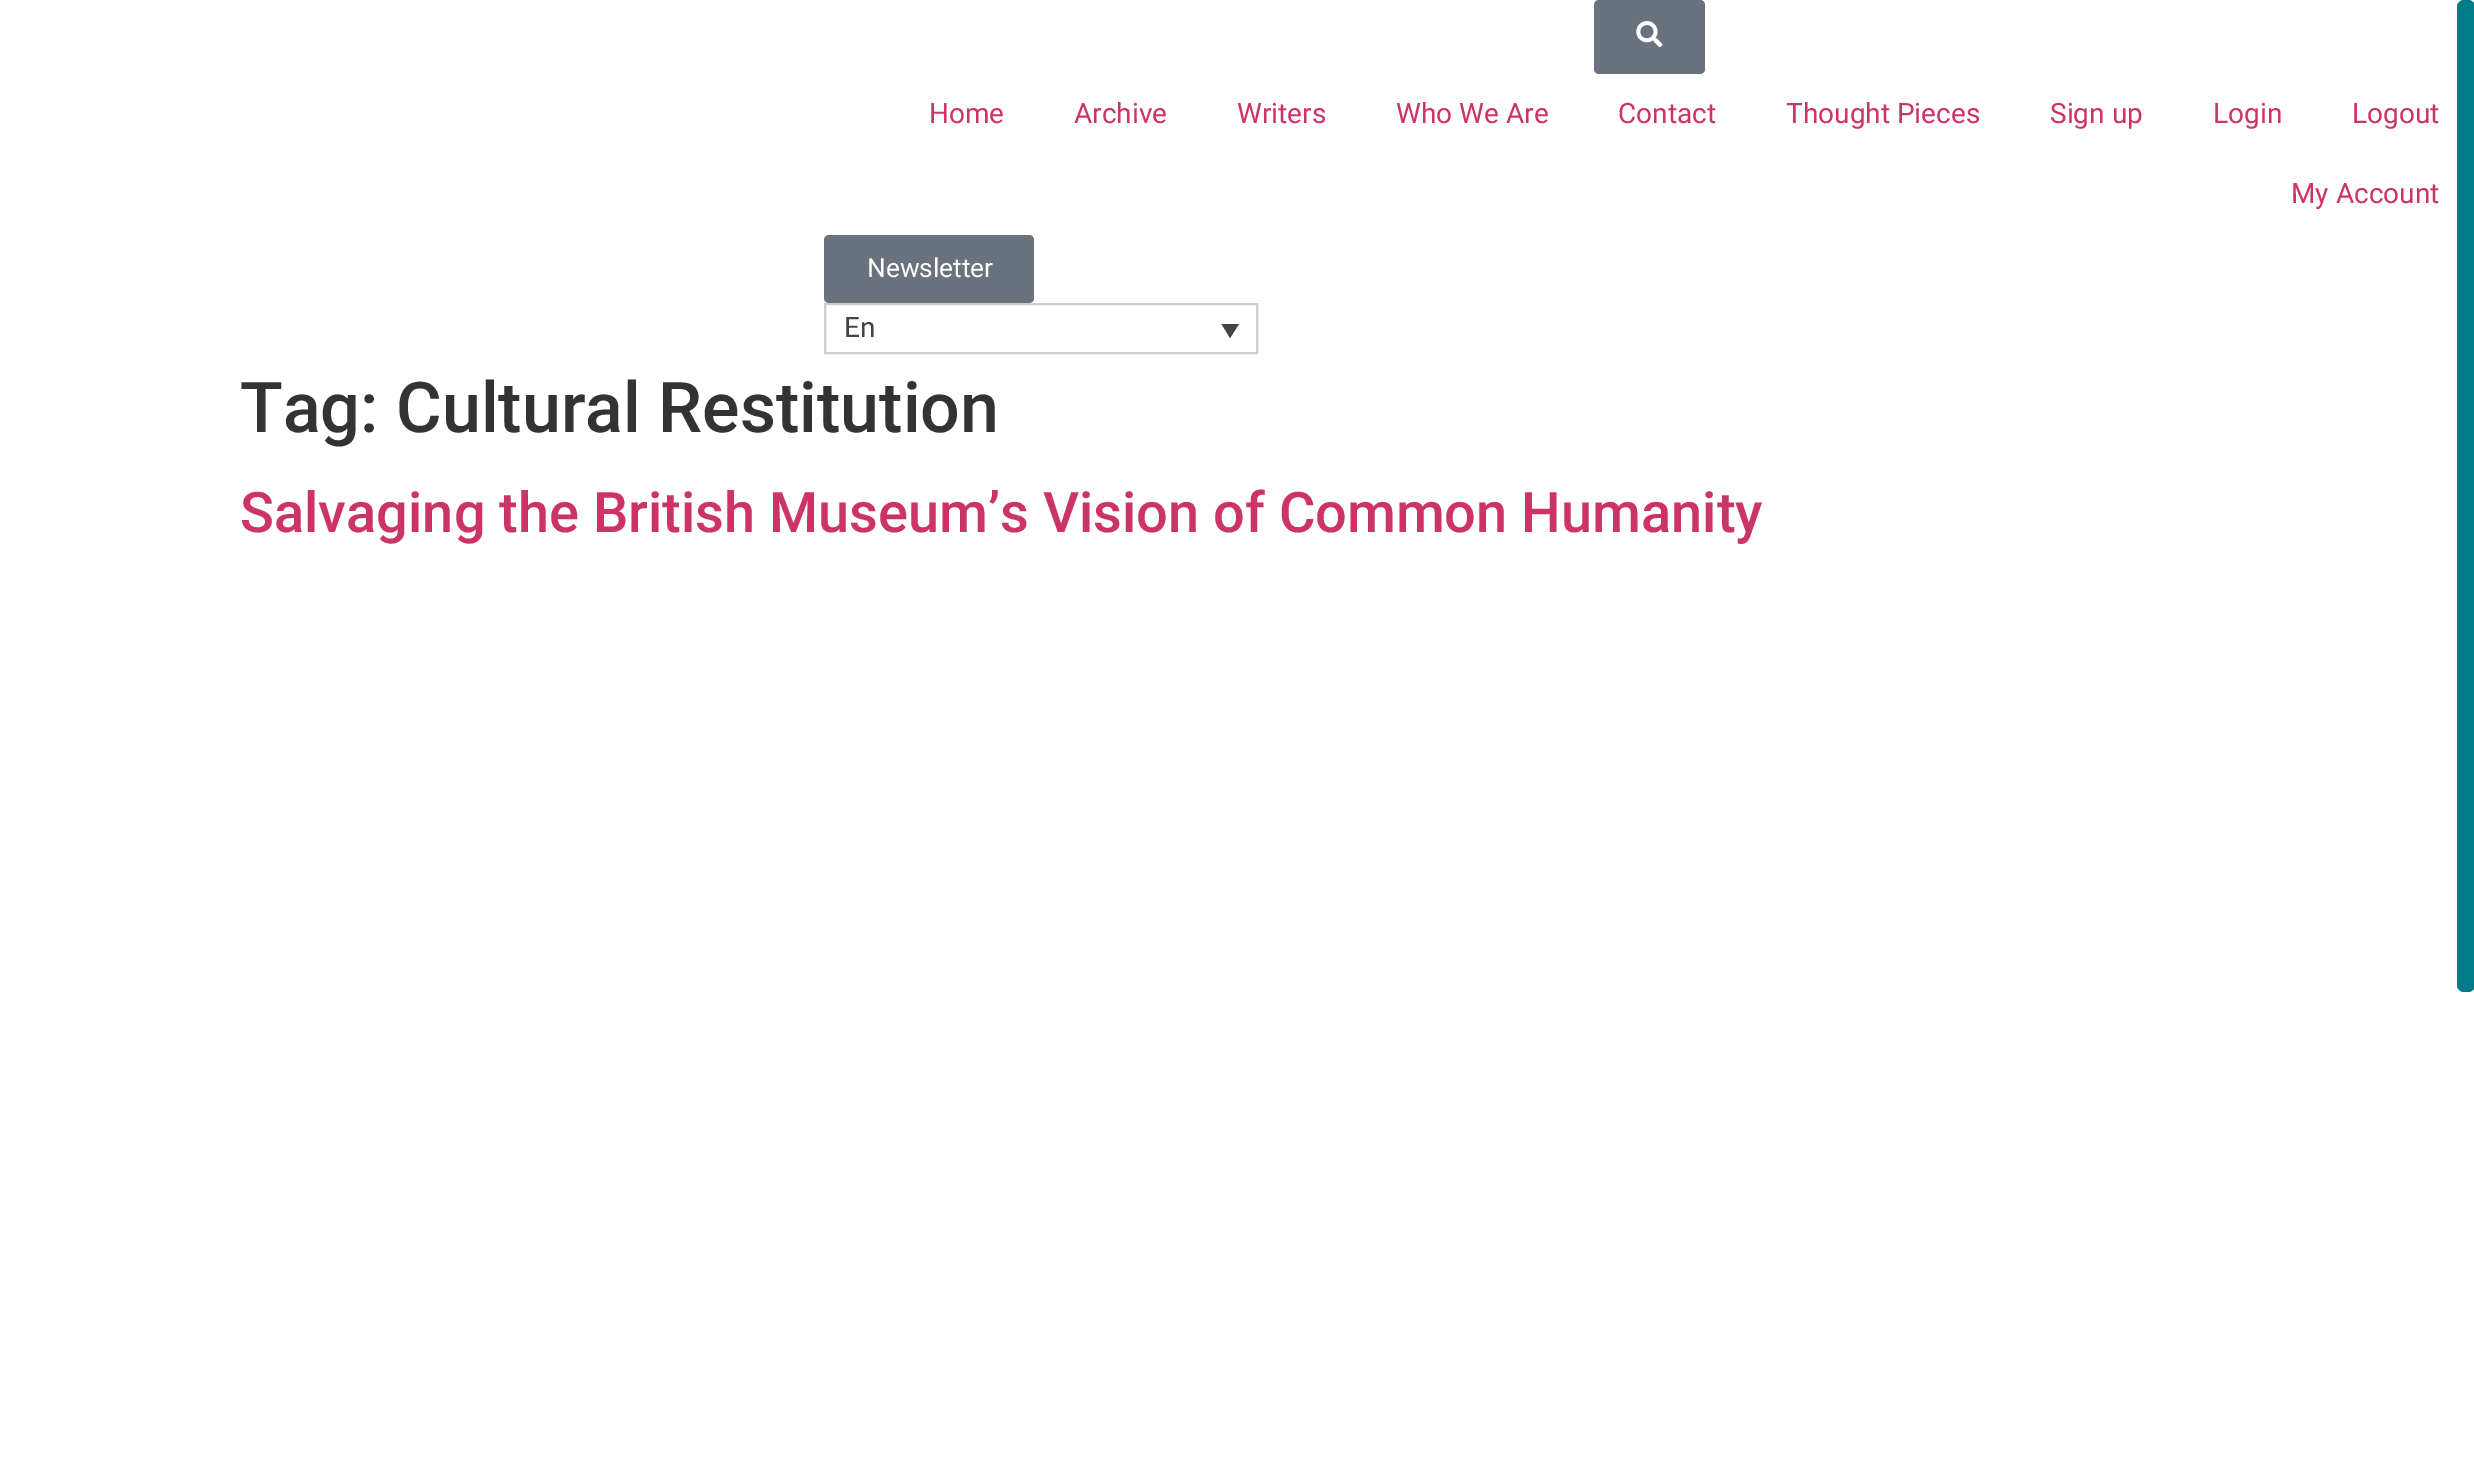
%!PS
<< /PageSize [2474 1462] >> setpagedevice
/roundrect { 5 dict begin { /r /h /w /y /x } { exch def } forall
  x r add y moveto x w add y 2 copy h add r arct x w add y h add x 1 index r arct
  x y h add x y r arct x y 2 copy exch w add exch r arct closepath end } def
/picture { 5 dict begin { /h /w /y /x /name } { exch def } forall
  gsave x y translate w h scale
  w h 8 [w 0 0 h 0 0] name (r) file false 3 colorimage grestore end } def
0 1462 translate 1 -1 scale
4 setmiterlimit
1 setgray
0 0 2474 1462 rectfill
0.412 0.447 0.49 setrgbcolor
1594 0 111 74 5 roundrect fill
(img1.rgb) 1636 21 27 26 picture
/Roboto-Regular [28 0 0 -28 0 0] selectfont
0.8 0.2 0.4 setrgbcolor
929 123 moveto (Home) show
1074 123 moveto (Archive) show
1237 123 moveto (Writers) show
1396 123 moveto (Who We Are) show
1618 123 moveto (Contact) show
1786 123 moveto (Thought Pieces) show
2050 123 moveto (Sign up) show
2213 123 moveto (Login) show
2352 123 moveto (Logout) show
2291 203 moveto (My Account) show
0.412 0.447 0.49 setrgbcolor
824 235 210 68 5 roundrect fill
/Roboto-Regular [26.25 0 0 -26.25 0 0] selectfont
1 setgray
867 277 moveto (Newsletter) show
0.804 setgray
2 setlinewidth
825 304 432 49 rectstroke
/Roboto-Regular [28 0 0 -28 0 0] selectfont
0.267 setgray
844 337 moveto (En) show
newpath 1221.5 324 moveto 1239 324 lineto 1230 338 lineto closepath fill
0 0.486 0.537 setrgbcolor
2457 0 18 992 7 roundrect fill
/Roboto-Medium [70 0 0 -70 0 0] selectfont
0.2 setgray
240 432 moveto (Tag: Cultural Restitution) show
/Roboto-Medium [56 0 0 -56 0 0] selectfont
0.8 0.2 0.4 setrgbcolor
240 532 moveto (Salvaging the British Museum’s Vision of Common Humanity) show
showpage
